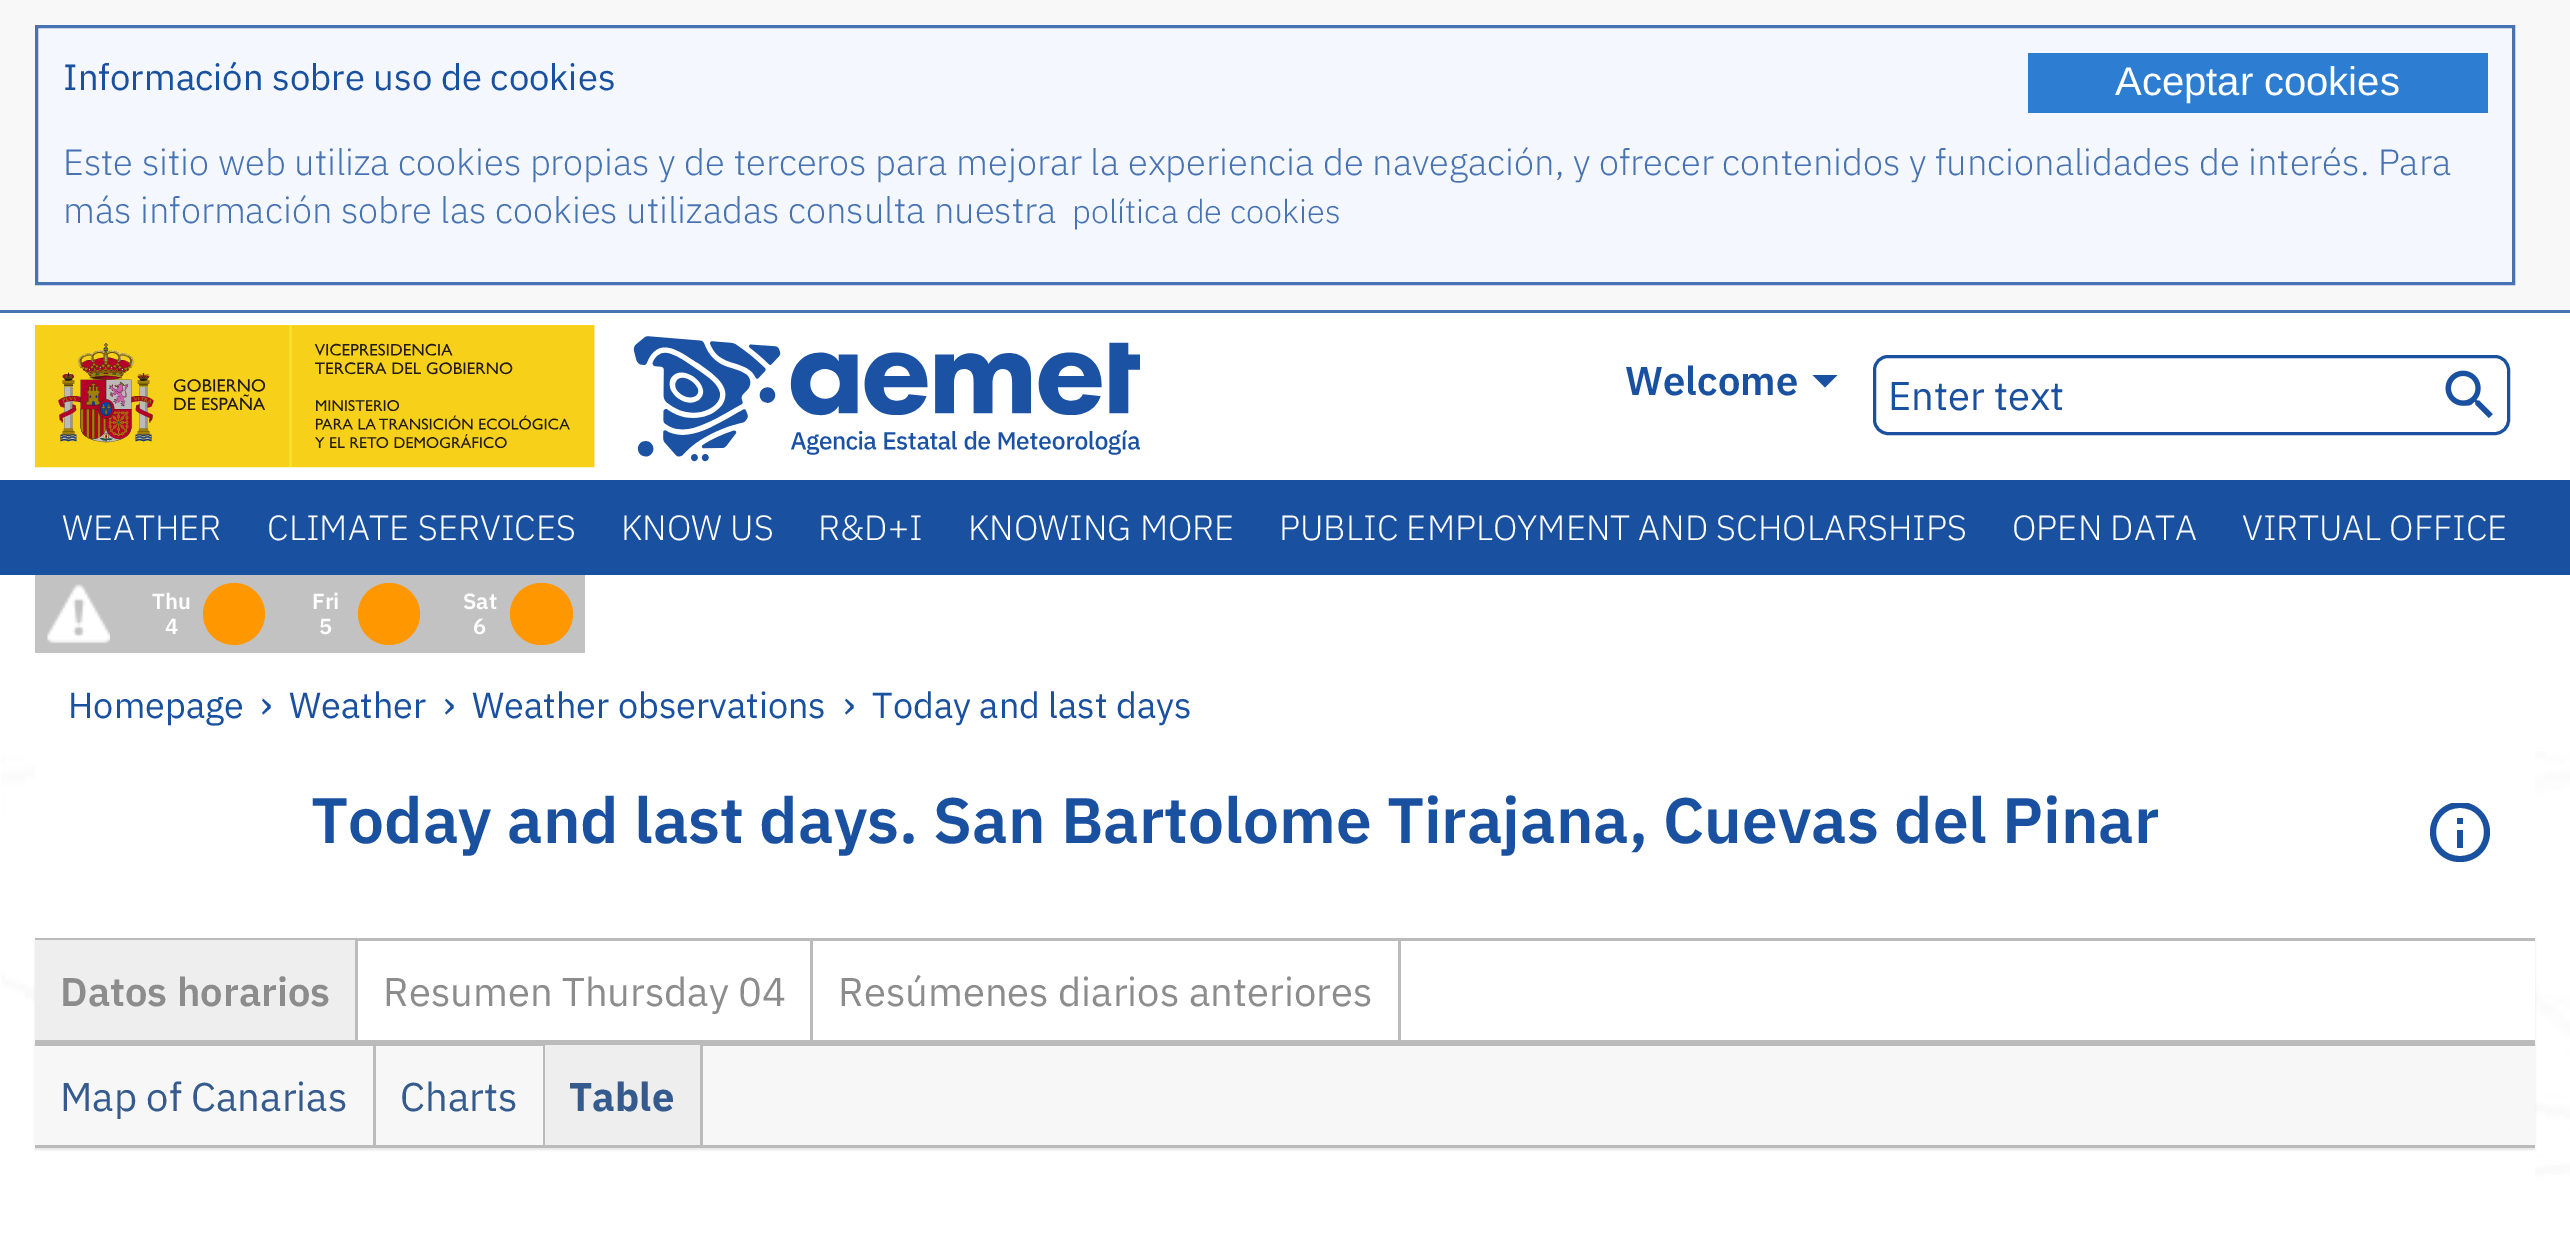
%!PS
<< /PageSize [2570 1254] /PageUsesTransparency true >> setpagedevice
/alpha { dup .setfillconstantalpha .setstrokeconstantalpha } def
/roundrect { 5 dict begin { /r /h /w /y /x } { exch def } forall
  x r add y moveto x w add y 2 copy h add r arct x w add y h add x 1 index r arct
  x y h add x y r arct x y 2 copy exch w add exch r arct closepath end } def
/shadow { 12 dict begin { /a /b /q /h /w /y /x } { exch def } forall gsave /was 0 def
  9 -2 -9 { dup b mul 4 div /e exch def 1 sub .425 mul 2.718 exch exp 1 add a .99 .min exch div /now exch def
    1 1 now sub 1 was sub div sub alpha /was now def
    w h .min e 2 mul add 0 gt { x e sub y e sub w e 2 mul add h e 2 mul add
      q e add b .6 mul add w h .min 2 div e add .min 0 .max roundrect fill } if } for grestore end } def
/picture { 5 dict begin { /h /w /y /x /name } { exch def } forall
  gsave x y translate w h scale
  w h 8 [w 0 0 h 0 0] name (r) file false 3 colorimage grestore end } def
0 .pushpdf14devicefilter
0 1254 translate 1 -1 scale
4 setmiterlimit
1 setgray
0 0 2570 1254 rectfill
0.973 setgray
0 0 2570 310 rectfill
0.278 0.451 0.702 setrgbcolor
0 310 2570 3 rectfill
0.957 0.973 0.996 setrgbcolor
newpath 36.5 26.5 moveto 2513.5 26.5 lineto 2513.5 283.5 lineto 36.5 283.5 lineto closepath gsave fill grestore
0.278 0.451 0.702 setrgbcolor
3 setlinewidth
stroke
/IBMPlexSans-Regular [36.4 0 0 -36.4 0 0] selectfont
0.098 0.314 0.627 setrgbcolor
63 90 moveto (Información sobre uso de cookies) show
0.176 0.49 0.824 setrgbcolor
2028 53 460 60 rectfill
/LiberationSans-Regular [40 0 0 -40 0 0] selectfont
1 setgray
2115 95 moveto (Aceptar cookies) show
/IBMPlexSans-Light [36.4 0 0 -36.4 0 0] selectfont
0.278 0.451 0.702 setrgbcolor
63 175 moveto (Este sitio web utiliza cookies propias y de terceros para mejorar la experiencia de navegación, y ofrecer contenidos y funcionalidades de interés. Para) show
63 223 moveto (más información sobre las cookies utilizadas consulta nuestra) show
/IBMPlexSans-Light [32.75 0 0 -32.75 0 0] selectfont
1072 223 moveto (política de cookies) show
(img1.rgb) 35 325 1105 143 picture
/IBMPlexSans-SemiBold [40 0 0 -40 0 0] selectfont
0.098 0.314 0.627 setrgbcolor
1625 395 moveto (Welcome) show
newpath 1812.5 375 moveto 1837.5 375 lineto 1825 387.5 lineto closepath fill
1874.5 356.5 634 77 13.5 roundrect stroke
/IBMPlexSans-Regular [40 0 0 -40 0 0] selectfont
1888 410 moveto (Enter text) show
(img2.rgb) 2445 370 48 49 picture
0 480 2570 95 rectfill
/IBMPlexSans-Light [35 0 0 -35 0 0] selectfont
1 setgray
62 540 moveto (WEATHER) show
267 540 moveto (CLIMATE SERVICES) show
621 540 moveto (KNOW US) show
818 540 moveto (R&D+I) show
968 540 moveto (KNOWING MORE) show
1279 540 moveto (PUBLIC EMPLOYMENT AND SCHOLARSHIPS) show
2012 540 moveto (OPEN DATA) show
2242 540 moveto (VIRTUAL OFFICE) show
(img3.rgb) 1 751 2569 503 picture
0.761 setgray
35 575 550 78 rectfill
(img4.rgb) 47 584 63 60 picture
/IBMPlexSans-SemiBold [22 0 0 -22 0 0] selectfont
1 setgray
152 609 moveto (Thu) show
165 634 moveto (4) show
1 0.596 0 setrgbcolor
newpath 234 614 31 0 360 arc closepath fill
1 setgray
312 609 moveto (Fri) show
319 634 moveto (5) show
1 0.596 0 setrgbcolor
newpath 389 614 31 0 360 arc closepath fill
1 setgray
463 609 moveto (Sat) show
473 634 moveto (6) show
1 0.596 0 setrgbcolor
510 583 63 62 31 roundrect fill
1 setgray
35 751 2500 503 rectfill
/IBMPlexSans-Regular [36 0 0 -36 0 0] selectfont
0.098 0.314 0.627 setrgbcolor
68 718 moveto (Homepage) show
/IBMPlexSans-Regular [40 0 0 -40 0 0] selectfont
260 718 moveto (›) show
/IBMPlexSans-Regular [36 0 0 -36 0 0] selectfont
289 718 moveto (Weather) show
/IBMPlexSans-Regular [40 0 0 -40 0 0] selectfont
443 718 moveto (›) show
/IBMPlexSans-Regular [36 0 0 -36 0 0] selectfont
472 718 moveto (Weather observations) show
/IBMPlexSans-Regular [40 0 0 -40 0 0] selectfont
843 718 moveto (›) show
/IBMPlexSans-Regular [36 0 0 -36 0 0] selectfont
872 718 moveto (Today and last days) show
/IBMPlexSans-SemiBold [64 0 0 -64 0 0] selectfont
311 843 moveto (Today and last days. San Bartolome Tirajana, Cuevas del Pinar) show
gsave
2430 803 60 60 rectclip
newpath 2460 856 moveto 2492 856 2492 808 2460 808 curveto 2428 808 2428 856 2460 856 curveto closepath 2460 862 moveto 2477 862 2490 849 2490 832 curveto 2490 816 2477 802 2460 802 curveto 2443 802 2430 816 2430 832 curveto 2430 849 2443 862 2460 862 curveto closepath eofill
grestore
2457 818 6 6 rectfill
2457 830 6 18 rectfill
gsave
newpath 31 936 moveto 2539 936 lineto 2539 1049 lineto 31 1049 lineto closepath 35 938 moveto 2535 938 lineto 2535 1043 lineto 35 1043 lineto closepath eoclip newpath
0 setgray
35 940 2500 105 0 1 0.1 shadow
grestore
0.733 setgray
35 938 2500 3 rectfill
35 1040 2500 3 rectfill
0.933 setgray
35 940 320 100 rectfill
0.733 setgray
355 940 3 100 rectfill
/IBMPlexSans-SemiBold [40 0 0 -40 0 0] selectfont
0.549 setgray
60 1006 moveto (Datos horarios) show
0.733 setgray
810 940 3 100 rectfill
/IBMPlexSans-Regular [40 0 0 -40 0 0] selectfont
0.549 setgray
383 1006 moveto (Resumen Thursday 04) show
0.733 setgray
1398 940 3 100 rectfill
0.549 setgray
838 1006 moveto (Resúmenes diarios anteriores) show
0 setgray
35 1045 2500 105 0 1 0.1 shadow
0.969 setgray
35 1046 2500 99 rectfill
0.733 setgray
35 1043 2500 3 rectfill
35 1145 2500 3 rectfill
373 1045 3 100 rectfill
0.204 0.353 0.557 setrgbcolor
60 1111 moveto (Map of Canarias) show
0.733 setgray
543 1045 2 100 rectfill
0.204 0.353 0.557 setrgbcolor
400 1111 moveto (Charts) show
0.933 setgray
545 1045 155 100 rectfill
0.733 setgray
700 1045 3 100 rectfill
/IBMPlexSans-Bold [40 0 0 -40 0 0] selectfont
0.204 0.353 0.557 setrgbcolor
569 1111 moveto (Table) show
.poppdf14devicefilter showpage
